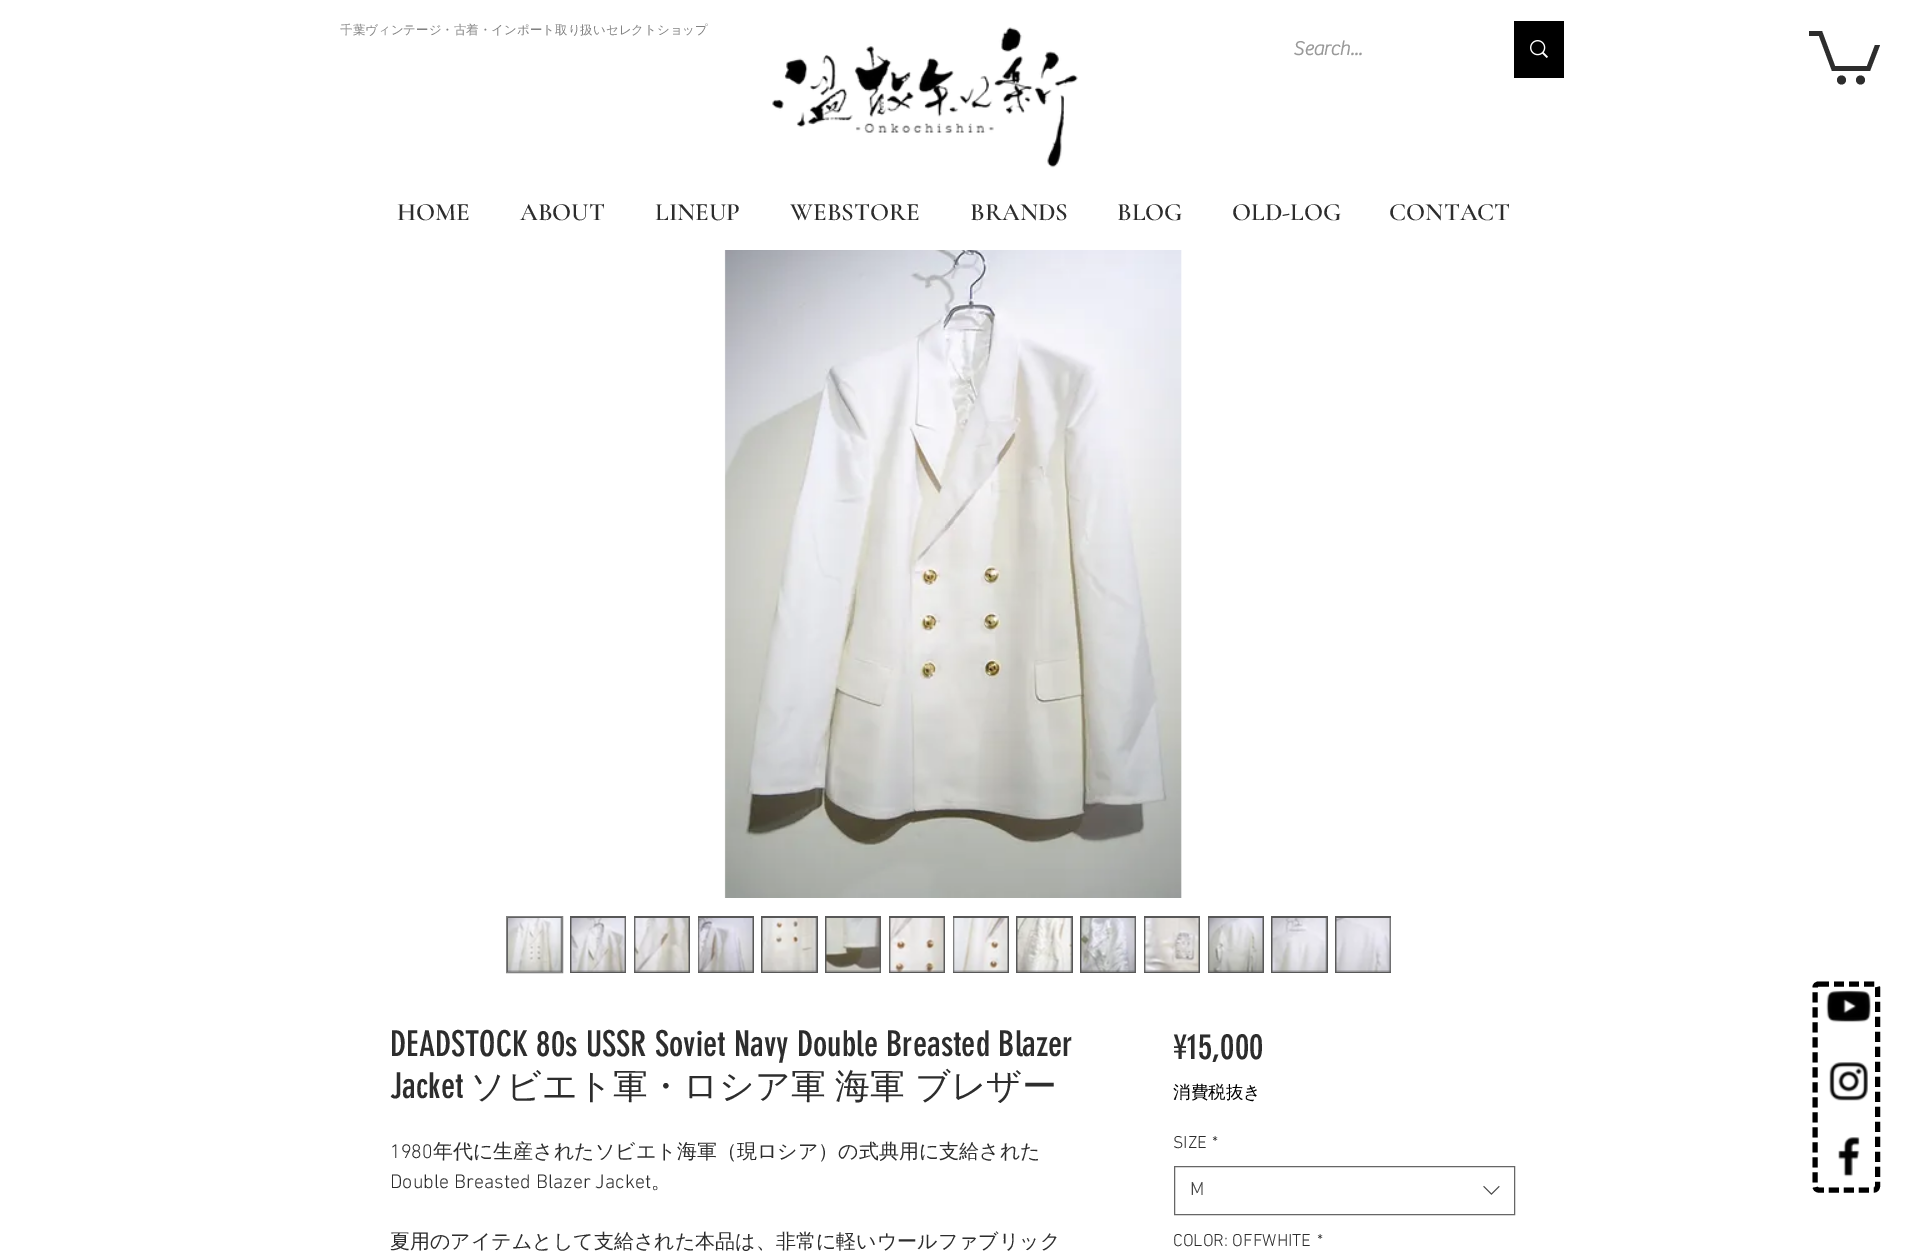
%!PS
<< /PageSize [1905 1255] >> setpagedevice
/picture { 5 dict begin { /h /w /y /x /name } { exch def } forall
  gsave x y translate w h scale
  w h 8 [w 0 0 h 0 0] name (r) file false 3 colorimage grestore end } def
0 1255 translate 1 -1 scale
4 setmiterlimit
1 setgray
0 0 1905 1255 rectfill
/WenQuanYiZenHei-Medium [12.5 0 0 -12.5 0 0] selectfont
0.506 setgray
340 34 moveto (千葉ヴィンテージ・古着・インポート取り扱いセレクトショップ) show
/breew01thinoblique-Bold [20 0 0 -20 0 0] selectfont
0.6 setgray
1293 55 moveto (Search...) show
0 setgray
1514 21 50 57 rectfill
(img1.rgb) 1530 40 18 18 picture
/CormorantGaramond-SemiBold [25 0 0 -25 0 0] selectfont
0.176 setgray
397 220 moveto (HOME) show
520 220 moveto (ABOUT) show
655 220 moveto (LINEUP) show
790 220 moveto (WEBSTORE) show
970 220 moveto (BRANDS) show
1117 220 moveto (BLOG) show
1232 220 moveto (OLD-LOG) show
1389 220 moveto (CONTACT) show
(img2.rgb) 772 27 306 141 picture
newpath 1880 45 moveto 1870 71 lineto 1832 71 lineto 1819 36 lineto 1809 36 lineto 1809 31 lineto 1822 31 lineto 1835 66 lineto 1867 66 lineto 1875 45 lineto fill
newpath 1860.5 80 4.5 0 360 arc closepath fill
newpath 1841.5 80 4.5 0 360 arc closepath fill
(img3.rgb) 724 250 458 648 picture
0.341 setgray
newpath 506.5 916.5 moveto 562.5 916.5 lineto 562.5 972.5 lineto 506.5 972.5 lineto closepath gsave fill grestore
0.506 setgray
stroke
(img4.rgb) 508 918 54 54 picture
0.341 setgray
570 916 56 57 rectfill
(img5.rgb) 570 918 56 54 picture
634 916 56 57 rectfill
(img6.rgb) 634 918 55 54 picture
698 916 56 57 rectfill
(img7.rgb) 698 918 55 54 picture
761 916 57 57 rectfill
(img8.rgb) 762 918 55 54 picture
825 916 56 57 rectfill
(img9.rgb) 825 918 56 54 picture
889 916 56 57 rectfill
(img10.rgb) 889 918 56 54 picture
953 916 56 57 rectfill
(img11.rgb) 953 918 55 54 picture
1016 916 57 57 rectfill
(img12.rgb) 1017 918 55 54 picture
1080 916 56 57 rectfill
(img13.rgb) 1081 918 55 54 picture
1144 916 56 57 rectfill
(img14.rgb) 1144 918 56 54 picture
1208 916 56 57 rectfill
(img15.rgb) 1208 918 55 54 picture
1271 916 57 57 rectfill
(img16.rgb) 1272 918 55 54 picture
1335 916 56 57 rectfill
(img17.rgb) 1335 918 56 54 picture
/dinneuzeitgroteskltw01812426-Regular [35 0 0 -35 0 0] selectfont
0.176 setgray
390 1056 moveto (DEADSTOCK 80s USSR Soviet Navy Double Breasted Blazer) show
390 1098 moveto (Jacket) show
/WenQuanYiZenHei-Medium [35 0 0 -35 0 0] selectfont
470 1098 moveto -1 0 32 (ソビエト軍・ロシア軍 海軍 ブレザー) widthshow
/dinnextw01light-Light [20 0 0 -20 0 0] selectfont
390 1158 moveto (1980) show
/WenQuanYiZenHei-Medium [20 0 0 -20 0 0] selectfont
433 1158 moveto (年代に生産されたソビエト海軍（現ロシア）の式典用に支給された) show
/dinnextw01light-Light [20 0 0 -20 0 0] selectfont
390 1188 moveto (Double Breasted Blazer Jacket) show
/WenQuanYiZenHei-Medium [20 0 0 -20 0 0] selectfont
651 1188 moveto (。) show
390 1248 moveto (夏用のアイテムとして支給された本品は、非常に軽いウールファブリック) show
/dinneuzeitgroteskltw01812426-Regular [35 0 0 -35 0 0] selectfont
1173 1059 moveto (¥15,000) show
/WenQuanYiZenHei-Medium [17.5 0 0 -17.5 0 0] selectfont
0 setgray
1173 1098 moveto (消費税抜き) show
/dinnextw01light-Light [17.5 0 0 -17.5 0 0] selectfont
0.176 setgray
1173 1148 moveto (SIZE) show
1212 1148 moveto (*) show
0.4 setgray
1174.5 1166.5 340 48 rectstroke
/dinnextw01light-Light [19 0 0 -19 0 0] selectfont
0.267 setgray
1190 1195 moveto (M) show
(img18.rgb) 1483 1185 17 10 picture
/dinnextw01light-Light [17.5 0 0 -17.5 0 0] selectfont
0.176 setgray
1173 1246 moveto (COLOR: OFFWHITE) show
1317 1246 moveto (*) show
0 setgray
5 setlinewidth
[10 5] 0 setdash
newpath 1819 984 moveto 1874 984 lineto 1876 984 1877.5 985.5 1877.5 987.5 curveto 1877.5 1186 lineto 1877.5 1188.5 1876 1190 1874 1190 curveto 1819 1190 lineto 1816.5 1190 1815 1188.5 1815 1186 curveto 1815 987.5 lineto 1815 985.5 1816.5 984 1819 984 curveto closepath stroke
(img19.rgb) 1826 990 45 33 picture
(img20.rgb) 1829 1062 39 39 picture
(img21.rgb) 1838 1137 22 40 picture
showpage
